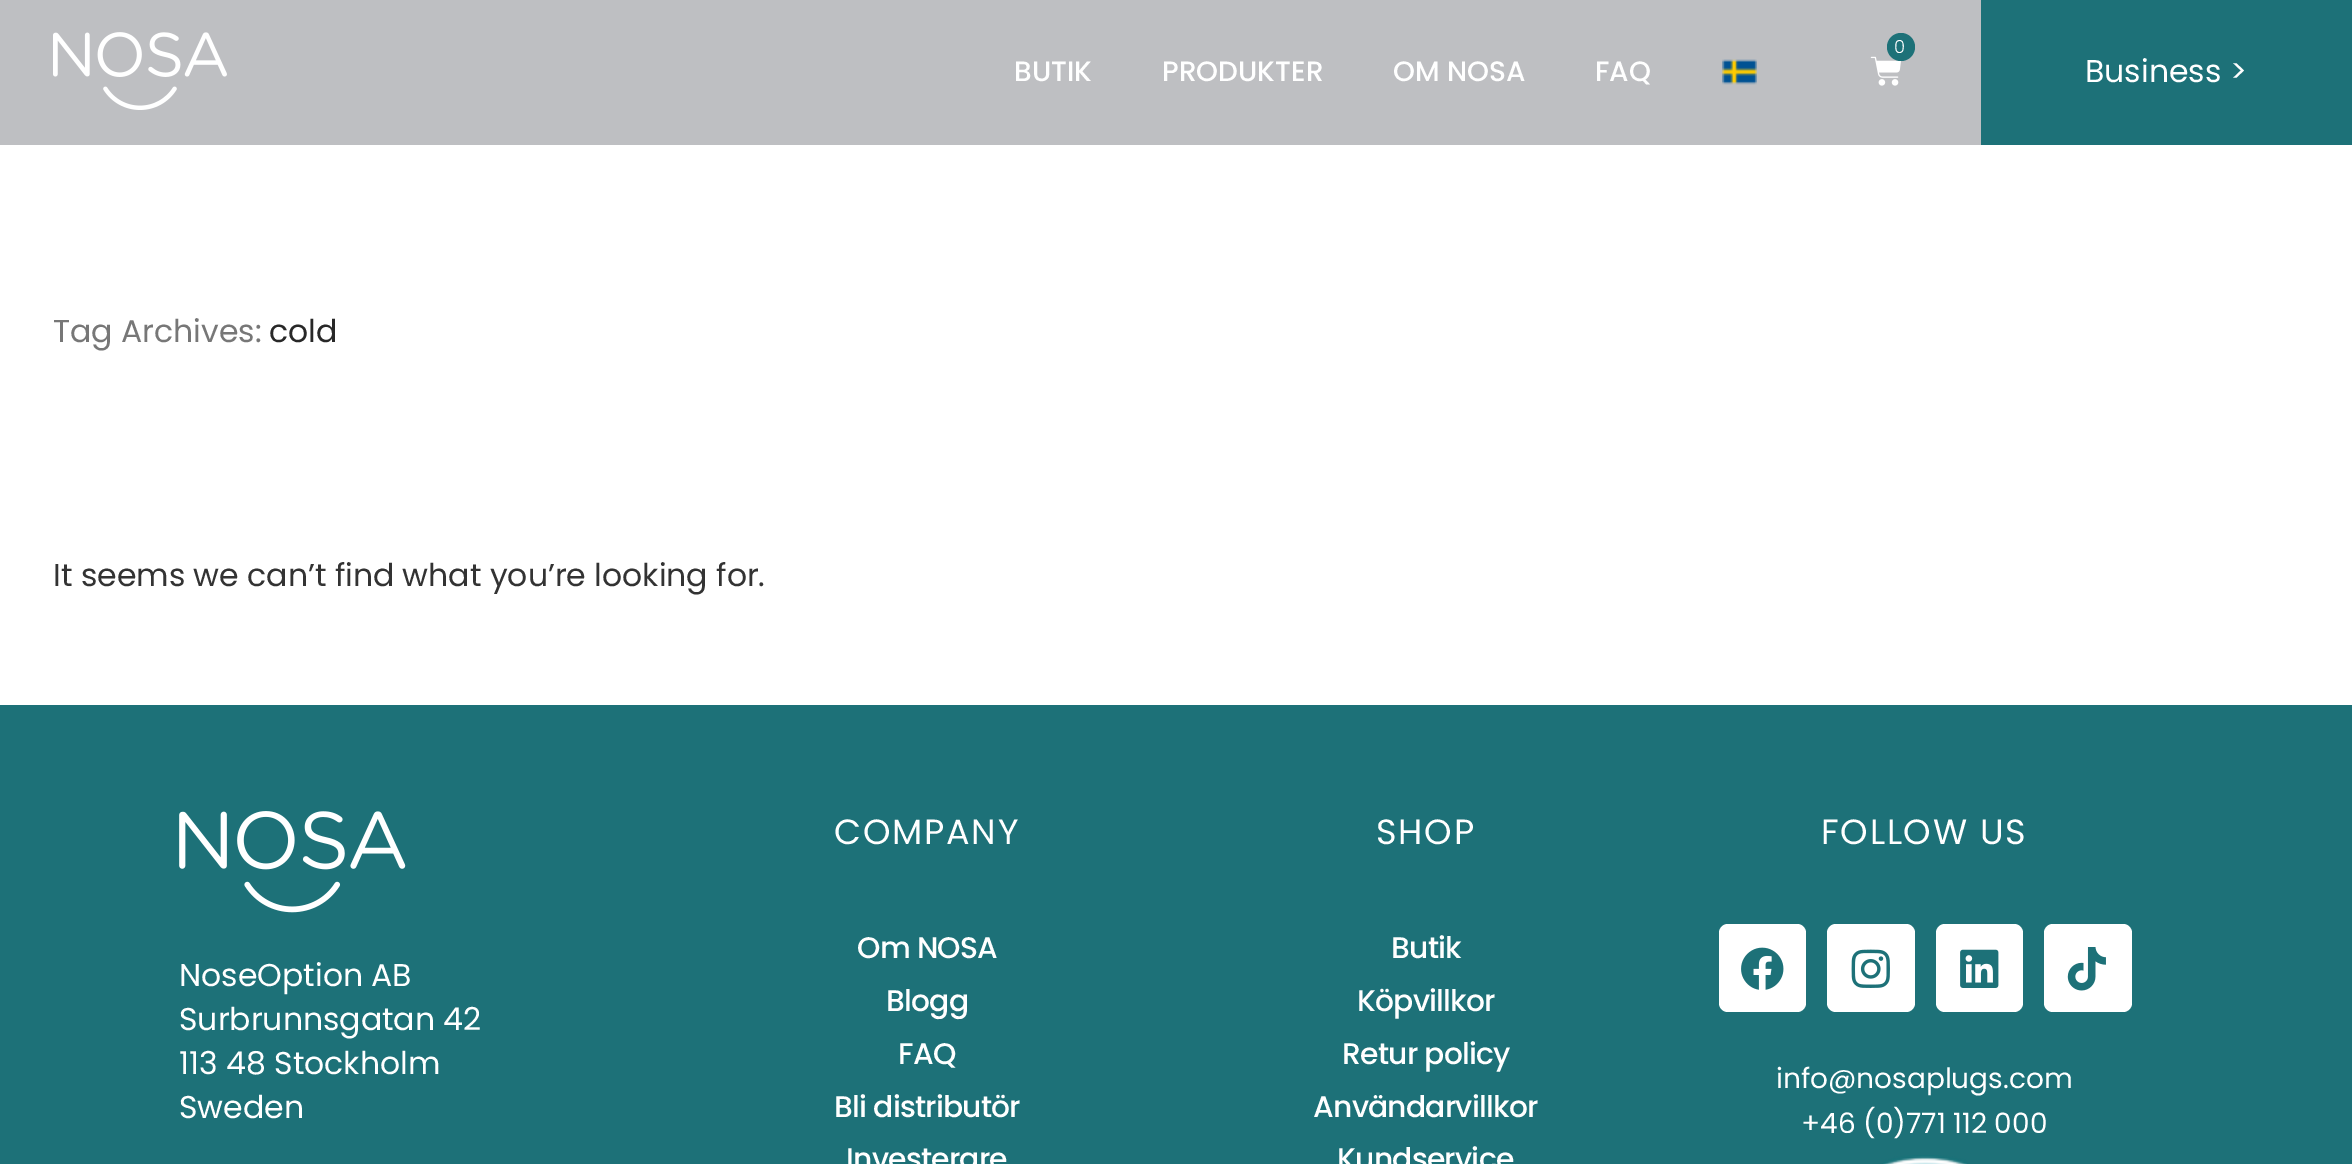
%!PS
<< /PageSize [2352 1164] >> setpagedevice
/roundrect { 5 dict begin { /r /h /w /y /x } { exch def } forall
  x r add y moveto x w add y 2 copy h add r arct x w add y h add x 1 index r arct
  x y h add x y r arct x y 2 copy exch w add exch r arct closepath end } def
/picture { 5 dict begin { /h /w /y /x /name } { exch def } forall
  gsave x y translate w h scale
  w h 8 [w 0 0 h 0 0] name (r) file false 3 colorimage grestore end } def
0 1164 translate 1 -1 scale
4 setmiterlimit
1 setgray
0 0 2352 1164 rectfill
0.745 0.749 0.761 setrgbcolor
0 0 1981 145 rectfill
(img1.rgb) 53 32 174 78 picture
(img2.rgb) 1870 56 31 30 picture
0.114 0.443 0.471 setrgbcolor
newpath 1901 47 14 0 360 arc closepath fill
/Poppins-Light [18 0 0 -18 0 0] selectfont
1 setgray
1894 53 moveto (0) show
/Poppins-Medium [28 0 0 -28 0 0] selectfont
1014 81 moveto (BUTIK) show
1162 81 moveto (PRODUKTER) show
1393 81 moveto (OM NOSA) show
1595 81 moveto (FAQ) show
(img3.rgb) 1722 59 35 26 picture
0.114 0.443 0.471 setrgbcolor
1981 0 371 145 rectfill
/Poppins-Regular [31.5 0 0 -31.5 0 0] selectfont
1 setgray
2085 82 moveto (Business >) show
0.467 setgray
53 342 moveto (Tag Archives:) show
0.157 setgray
269 342 moveto (cold) show
0.2 setgray
53 586 moveto (It seems we can’t find what you’re looking for.) show
0.114 0.443 0.471 setrgbcolor
0 705 2352 459 rectfill
(img4.rgb) 179 811 227 102 picture
1 setgray
179 986 moveto (NoseOption AB) show
179 1030 moveto (Surbrunnsgatan 42) show
179 1074 moveto (113 48 Stockholm) show
179 1118 moveto (Sweden) show
/Poppins-Regular [35 0 0 -35 0 0] selectfont
834 844 moveto 1.75 0 (COMPANY) ashow
/Poppins-Medium [29.75 0 0 -29.75 0 0] selectfont
857 958 moveto -0.75 0 (Om NOSA) ashow
886 1011 moveto -0.75 0 (Blogg) ashow
898 1064 moveto -0.75 0 (FAQ) ashow
834 1117 moveto -0.75 0 (Bli distributör) ashow
846 1169 moveto -0.75 0 (Investerare) ashow
/Poppins-Regular [35 0 0 -35 0 0] selectfont
1376 844 moveto 1.75 0 (SHOP) ashow
/Poppins-Medium [29.75 0 0 -29.75 0 0] selectfont
1391 958 moveto -0.75 0 (Butik) ashow
1357 1011 moveto -0.75 0 (Köpvillkor) ashow
1342 1064 moveto -0.75 0 (Retur policy) ashow
1313 1117 moveto -0.75 0 (Användarvillkor) ashow
1337 1169 moveto -0.75 0 (Kundservice) ashow
/Poppins-Regular [35 0 0 -35 0 0] selectfont
1821 844 moveto 1.75 0 (FOLLOW US) ashow
1719 924 87 88 9 roundrect fill
(img5.rgb) 1741 947 43 43 picture
1827 924 88 88 9 roundrect fill
(img6.rgb) 1851 949 39 39 picture
1936 924 87 88 9 roundrect fill
(img7.rgb) 1960 949 39 39 picture
2044 924 88 88 9 roundrect fill
(img8.rgb) 2067 947 39 44 picture
/Poppins-Regular [28 0 0 -28 0 0] selectfont
1776 1088 moveto (info@nosaplugs.com) show
1801 1133 moveto (+46 \(0\)771 112 000) show
(img9.rgb) 1883 1155 84 9 picture
showpage
